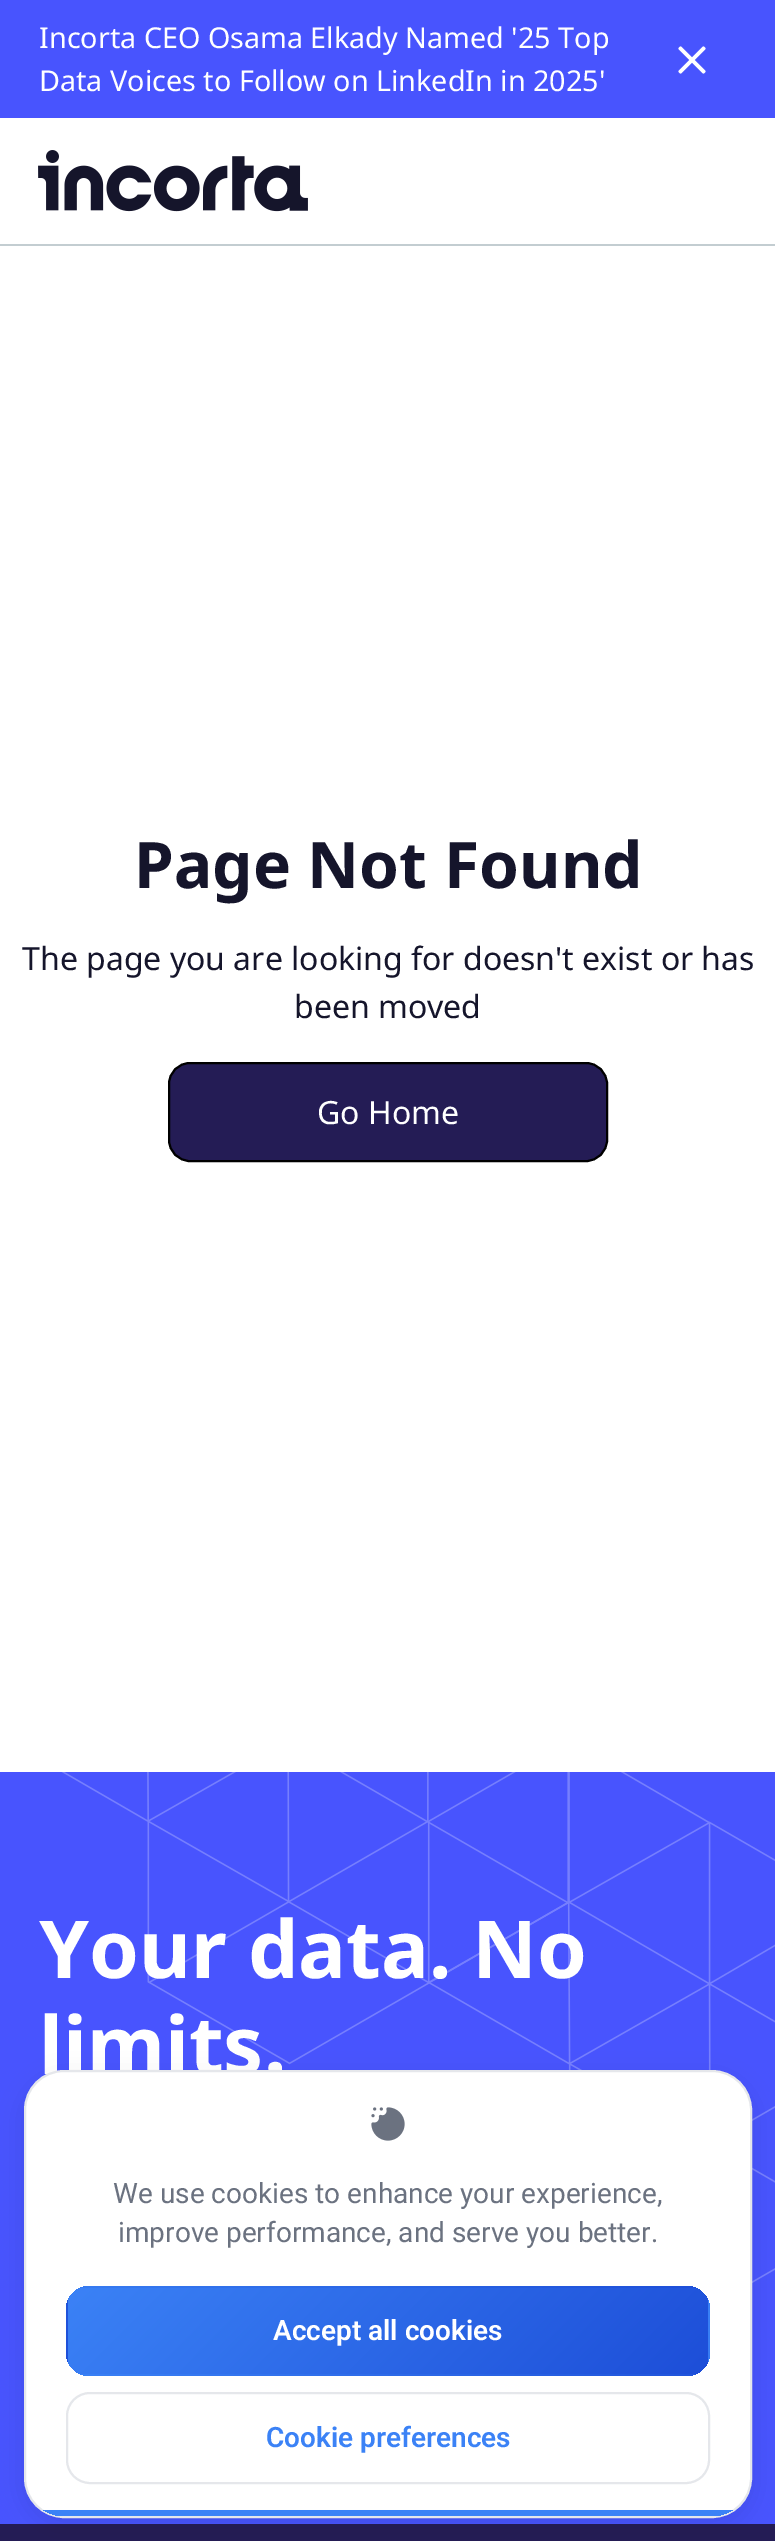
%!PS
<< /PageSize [775 2541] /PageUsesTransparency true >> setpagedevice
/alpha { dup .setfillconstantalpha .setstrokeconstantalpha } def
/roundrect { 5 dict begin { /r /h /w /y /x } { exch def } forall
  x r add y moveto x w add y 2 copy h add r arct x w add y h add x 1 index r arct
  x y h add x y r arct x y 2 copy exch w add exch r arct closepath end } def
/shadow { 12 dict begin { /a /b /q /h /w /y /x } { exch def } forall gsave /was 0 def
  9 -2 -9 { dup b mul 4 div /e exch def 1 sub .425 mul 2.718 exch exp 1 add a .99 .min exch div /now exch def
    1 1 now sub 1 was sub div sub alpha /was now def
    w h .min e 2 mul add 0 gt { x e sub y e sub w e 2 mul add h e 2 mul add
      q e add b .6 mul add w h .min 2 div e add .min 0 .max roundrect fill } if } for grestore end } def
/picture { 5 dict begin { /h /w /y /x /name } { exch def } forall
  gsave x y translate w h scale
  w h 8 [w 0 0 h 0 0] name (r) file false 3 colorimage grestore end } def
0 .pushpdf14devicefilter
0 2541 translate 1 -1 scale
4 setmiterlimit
1 setgray
0 0 775 2541 rectfill
0.282 0.329 0.996 setrgbcolor
0 0 775 118 rectfill
/NotoSans-Regular [28.75 0 0 -28.75 0 0] selectfont
1 setgray
39 48 moveto (Incorta CEO Osama Elkady Named '25 Top) show
39 91 moveto (Data Voices to Follow on LinkedIn in 2025') show
(img1.rgb) 678 46 28 28 picture
0.765 0.804 0.82 setrgbcolor
0 244 775 2 rectfill
(img2.rgb) 38 150 270 62 picture
/NotoSans-Bold [64 0 0 -64 0 0] selectfont
0.082 0.082 0.169 setrgbcolor
134 888 moveto (Page Not Found) show
/NotoSans-Regular [32 0 0 -32 0 0] selectfont
22 970 moveto (The page you are looking for doesn't exist or has) show
294 1018 moveto (been moved) show
0.141 0.11 0.333 setrgbcolor
169 1063 438 98 21 roundrect gsave fill grestore
0 setgray
2 setlinewidth
stroke
1 setgray
317 1124 moveto (Go Home) show
0.282 0.329 0.996 setrgbcolor
0 1772 775 752 rectfill
(img3.rgb) 61 1772 714 512 picture
/NotoSans-Bold [80 0 0 -80 0 0] selectfont
1 setgray
39 1978 moveto (Your data. No) show
39 2074 moveto (limits.) show
0.141 0.11 0.333 setrgbcolor
0 2524 775 17 rectfill
0 setgray
24 2078 728 448 40 12 0.08 shadow
1 setgray
25 2071 726 446 39 roundrect gsave fill grestore
0.898 0.906 0.922 setrgbcolor
stroke
(img4.rgb) 371 2107 34 34 picture
/Roboto-Regular [28 0 0 -28 0 0] selectfont
0.42 0.447 0.502 setrgbcolor
113 2203 moveto (We use cookies to enhance your experience,) show
118 2242 moveto (improve performance, and serve you better.) show
gsave
66 2286 644 90 24 roundrect clip newpath
gsave newpath 80 2286 moveto 696 2286 lineto 696 2288 lineto 80 2288 lineto closepath clip newpath
<< /ShadingType 2 /ColorSpace /DeviceRGB /Coords [206 2064 570 2427] /Extend [true true] /Function << /FunctionType 2 /Domain [0 1] /C0 [0.231 0.51 0.965] /C1 [0.114 0.306 0.847] /N 1 >> >> shfill grestore
gsave newpath 66 2300 moveto 68 2300 lineto 68 2362 lineto 66 2362 lineto closepath clip newpath
<< /ShadingType 2 /ColorSpace /DeviceRGB /Coords [-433 2150 -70 2513] /Extend [true true] /Function << /FunctionType 2 /Domain [0 1] /C0 [0.231 0.51 0.965] /C1 [0.114 0.306 0.847] /N 1 >> >> shfill grestore
gsave newpath 68 2288 moveto 708 2288 lineto 708 2374 lineto 68 2374 lineto closepath clip newpath
<< /ShadingType 2 /ColorSpace /DeviceRGB /Coords [206 2150 570 2513] /Extend [true true] /Function << /FunctionType 2 /Domain [0 1] /C0 [0.231 0.51 0.965] /C1 [0.114 0.306 0.847] /N 1 >> >> shfill grestore
gsave newpath 708 2300 moveto 710 2300 lineto 710 2362 lineto 708 2362 lineto closepath clip newpath
<< /ShadingType 2 /ColorSpace /DeviceRGB /Coords [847 2150 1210 2513] /Extend [true true] /Function << /FunctionType 2 /Domain [0 1] /C0 [0.231 0.51 0.965] /C1 [0.114 0.306 0.847] /N 1 >> >> shfill grestore
gsave newpath 80 2374 moveto 696 2374 lineto 696 2376 lineto 80 2376 lineto closepath clip newpath
<< /ShadingType 2 /ColorSpace /DeviceRGB /Coords [206 2236 570 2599] /Extend [true true] /Function << /FunctionType 2 /Domain [0 1] /C0 [0.231 0.51 0.965] /C1 [0.114 0.306 0.847] /N 1 >> >> shfill grestore
grestore
/Roboto-SemiBold [28 0 0 -28 0 0] selectfont
1 setgray
273 2340 moveto (Accept all cookies) show
0.898 0.906 0.922 setrgbcolor
67 2393 642 90 23 roundrect stroke
0.231 0.51 0.965 setrgbcolor
266 2447 moveto (Cookie preferences) show
gsave
26 2072 724 444 38 roundrect clip newpath
newpath 26 2510 moveto 750 2510 lineto 750 2513.5 747.5 2516 744 2516 curveto 32 2516 lineto 28.5 2516 26 2513.5 26 2510 curveto closepath fill
grestore
.poppdf14devicefilter showpage
